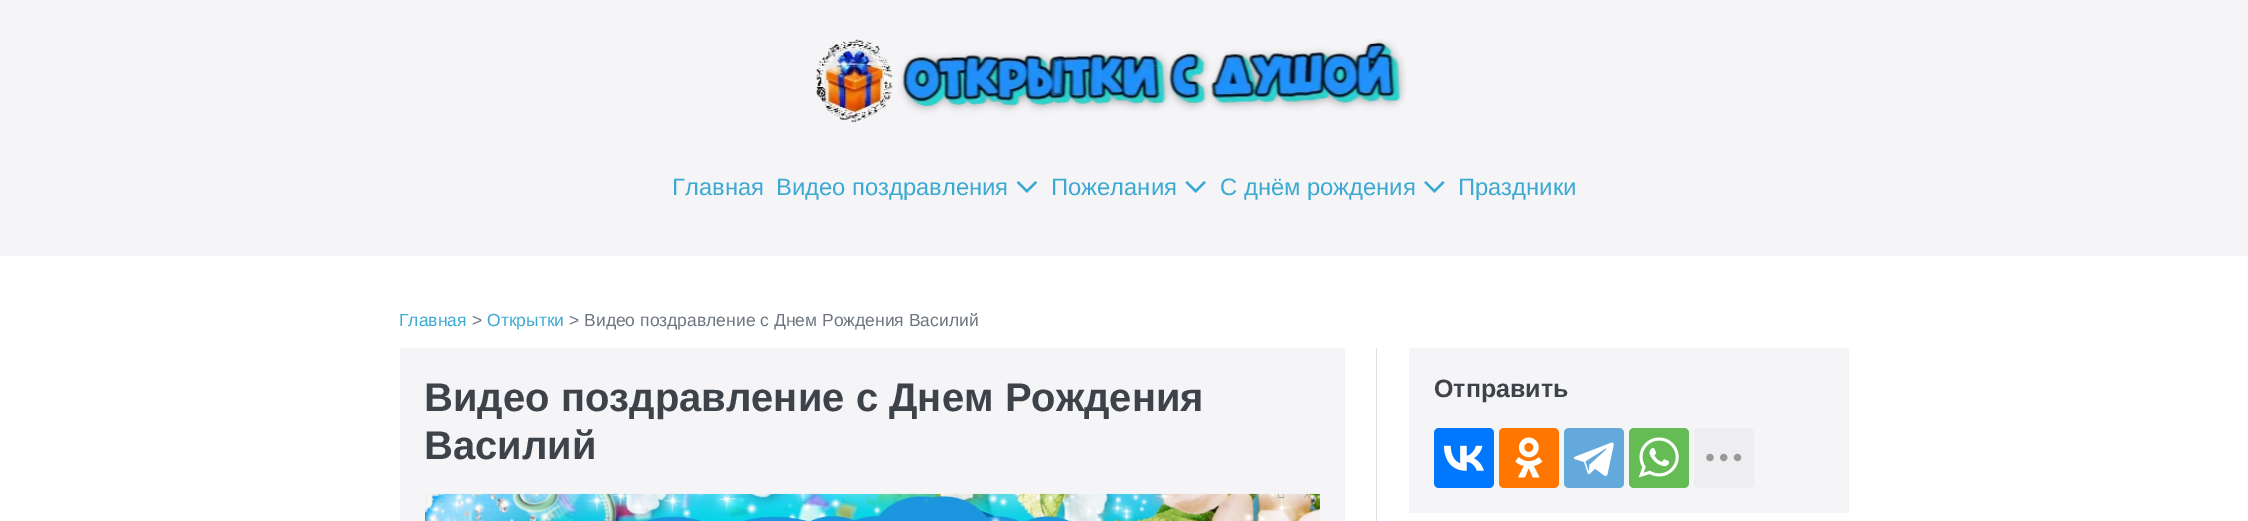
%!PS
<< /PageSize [2248 521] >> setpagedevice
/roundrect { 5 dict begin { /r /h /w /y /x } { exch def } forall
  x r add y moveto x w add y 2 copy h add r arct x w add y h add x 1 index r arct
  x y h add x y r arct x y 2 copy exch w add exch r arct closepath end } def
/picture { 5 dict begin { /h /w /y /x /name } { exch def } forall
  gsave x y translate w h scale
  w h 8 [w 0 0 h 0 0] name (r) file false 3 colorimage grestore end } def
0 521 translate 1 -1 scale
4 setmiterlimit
1 setgray
0 0 2248 521 rectfill
0.961 0.961 0.969 setrgbcolor
0 0 2248 256 rectfill
(img1.rgb) 816 39 590 84 picture
/LiberationSans-Regular [23.75 0 0 -23.75 0 0] selectfont
0.231 0.663 0.824 setrgbcolor
672 195 moveto (Главная) show
776 195 moveto (Видео поздравления) show
(img2.rgb) 1016 181 21 12 picture
1051 195 moveto (Пожелания) show
(img3.rgb) 1185 181 21 12 picture
1220 195 moveto (С днём рождения) show
(img4.rgb) 1424 181 21 12 picture
1458 195 moveto (Праздники) show
/LiberationSans-Regular [17.5 0 0 -17.5 0 0] selectfont
399 326 moveto (Главная) show
0.427 0.463 0.502 setrgbcolor
472 326 moveto (>) show
0.231 0.663 0.824 setrgbcolor
487 326 moveto (Открытки) show
0.427 0.463 0.502 setrgbcolor
569 326 moveto (> Видео поздравление с Днем Рождения Василий) show
0.961 0.961 0.969 setrgbcolor
400 348 945 173 rectfill
/LiberationSans-Bold [40 0 0 -40 0 0] selectfont
0.243 0.263 0.286 setrgbcolor
424 411 moveto (Видео поздравление с Днем Рождения) show
424 459 moveto (Василий) show
(img5.rgb) 425 493 895 28 picture
0.871 0.871 0.898 setrgbcolor
1376 348 1 173 rectfill
0.961 0.961 0.969 setrgbcolor
1409 348 440 165 rectfill
/LiberationSans-Bold [25 0 0 -25 0 0] selectfont
0.243 0.263 0.286 setrgbcolor
1434 397 moveto (Отправить) show
0 0.467 1 setrgbcolor
1434 428 60 60 5 roundrect fill
(img6.rgb) 1443 445 41 26 picture
1 0.467 0 setrgbcolor
1499 428 60 60 5 roundrect fill
(img7.rgb) 1515 437 28 41 picture
0.392 0.663 0.863 setrgbcolor
1564 428 60 60 5 roundrect fill
(img8.rgb) 1573 442 41 34 picture
0.396 0.737 0.329 setrgbcolor
1629 428 60 60 5 roundrect fill
(img9.rgb) 1638 437 41 41 picture
0.933 0.933 0.941 setrgbcolor
1694 428 60 60 5 roundrect fill
(img10.rgb) 1706 453 36 9 picture
showpage
